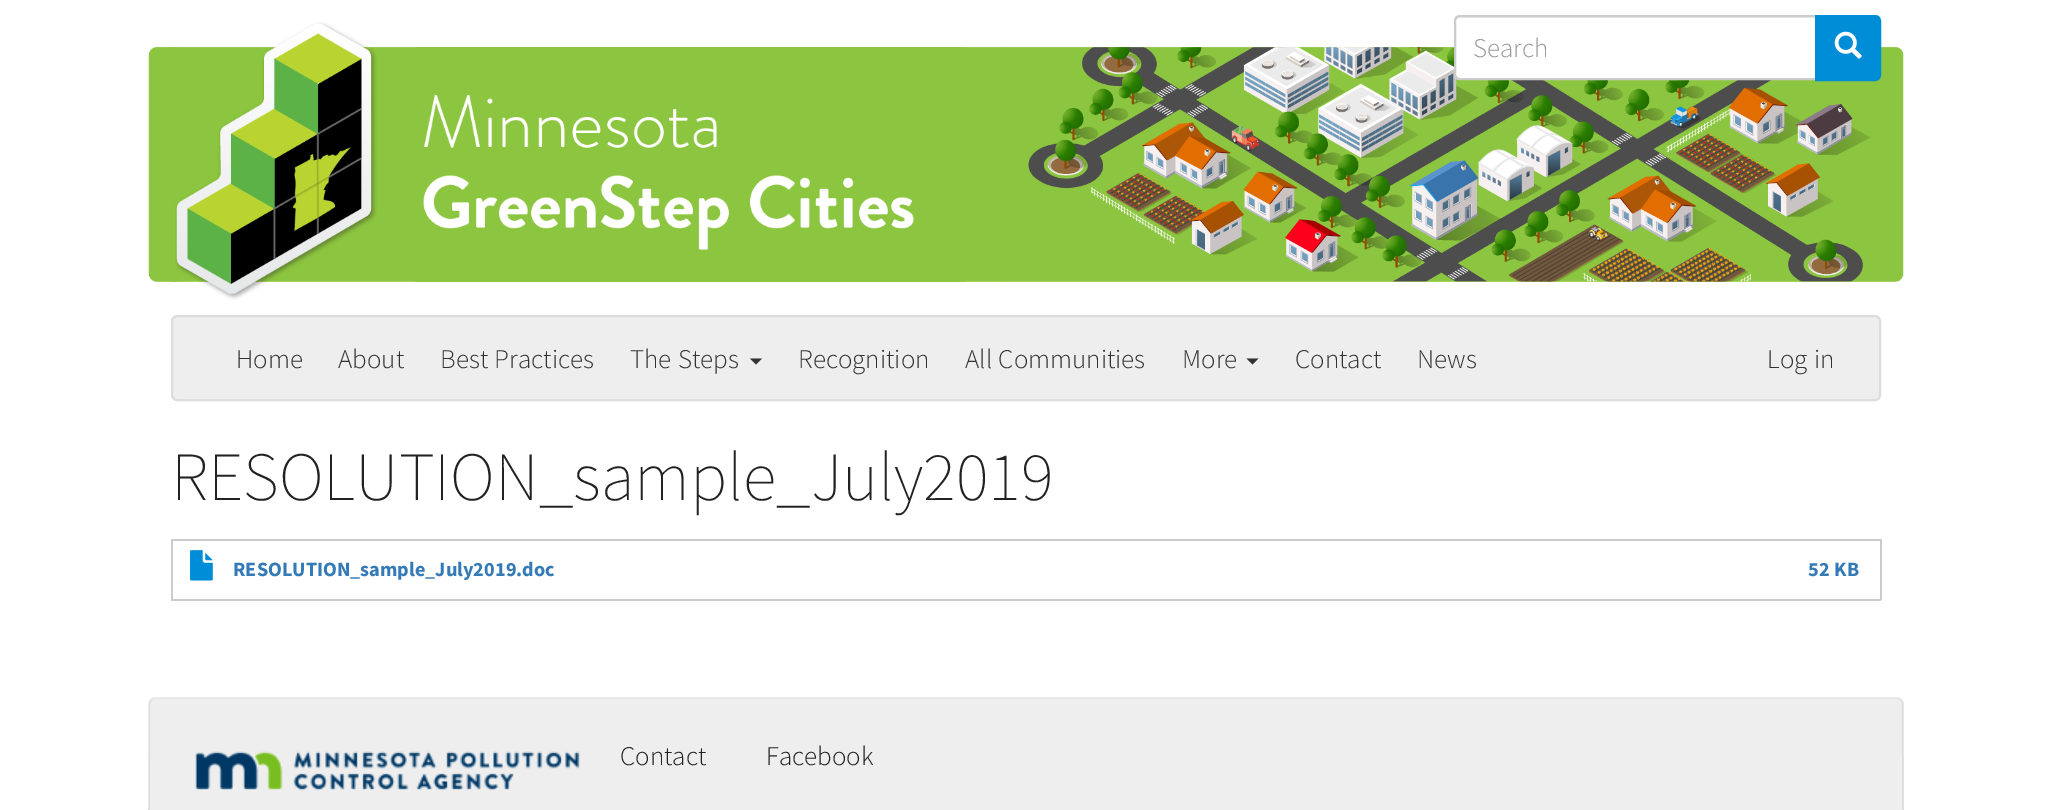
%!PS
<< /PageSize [2052 810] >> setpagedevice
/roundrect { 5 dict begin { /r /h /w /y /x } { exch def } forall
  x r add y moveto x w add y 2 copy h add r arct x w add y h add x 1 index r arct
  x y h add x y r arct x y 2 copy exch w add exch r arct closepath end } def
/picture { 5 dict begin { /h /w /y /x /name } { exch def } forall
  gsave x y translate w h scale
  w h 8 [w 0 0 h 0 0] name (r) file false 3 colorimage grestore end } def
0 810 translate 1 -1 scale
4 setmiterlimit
1 setgray
0 0 2052 810 rectfill
(img1.rgb) 148 47 1756 235 picture
(img2.rgb) 175 22 739 278 picture
newpath 1460 15 moveto 1817 15 lineto 1817 80 lineto 1460 80 lineto 1456.5 80 1454 77.5 1454 74 curveto 1454 21 lineto 1454 17.5 1456.5 15 1460 15 curveto closepath fill
0.925 setgray
newpath 1460 18 moveto 1815 18 lineto 1815 17 lineto 1460 17 lineto 1457 17 1455 19 1455 22 curveto 1455 20 1457 18 1460 18 curveto closepath fill
0.8 setgray
2 setlinewidth
newpath 1460 16 moveto 1816 16 lineto 1816 79 lineto 1460 79 lineto 1457 79 1455 77 1455 74 curveto 1455 21 lineto 1455 18 1457 16 1460 16 curveto closepath stroke
/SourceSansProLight-Light [27 0 0 -27 0 0] selectfont
0.6 setgray
1473 57 moveto (Search) show
0 0.553 0.847 setrgbcolor
newpath 1816 16 moveto 1875 16 lineto 1878 16 1880 18 1880 21 curveto 1880 75 lineto 1880 78 1878 80 1875 80 curveto 1816 80 lineto closepath gsave fill grestore
stroke
(img3.rgb) 1834 31 28 28 picture
0.933 setgray
172 316 1708 84 5 roundrect gsave fill grestore
0.867 setgray
stroke
0.2 setgray
236 368 moveto (Home) show
338 368 moveto (About) show
440 368 moveto 1 0 32 (Best Practices) widthshow
630 368 moveto 1 0 32 (The Steps) widthshow
newpath 750 358.5 moveto 762 358.5 lineto 756 364.5 lineto closepath fill
798 368 moveto (Recognition) show
965 368 moveto 1 0 32 (All Communities) widthshow
1182 368 moveto (More) show
newpath 1246.5 358.5 moveto 1258.5 358.5 lineto 1252.5 364.5 lineto closepath fill
1295 368 moveto (Contact) show
1417 368 moveto (News) show
1767 368 moveto 1 0 32 (Log in) widthshow
/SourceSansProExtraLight-ExtraLight [69 0 0 -69 0 0] selectfont
0.133 setgray
171 500 moveto (RESOLUTION_sample_July2019) show
0.8 setgray
171 539 1710 2 rectfill
171 599 1617 2 rectfill
171 539 2 61 rectfill
(img4.rgb) 190 550 23 31 picture
/SourceSansPro-Bold [20.25 0 0 -20.25 0 0] selectfont
0.2 0.478 0.718 setrgbcolor
233 576 moveto (RESOLUTION_sample_July2019.doc) show
0.8 setgray
1880 539 2 61 rectfill
1788 599 93 2 rectfill
0.2 0.478 0.718 setrgbcolor
1808 576 moveto 1 0 32 (52 KB) widthshow
0.933 setgray
149 698 1755 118 6 roundrect fill
0.898 setgray
1.5 setlinewidth
newpath 151 700 moveto 152 699 153 698 154.5 698 curveto 1897.5 698 lineto 1899 698 1900 699 1901 700 curveto stroke
0.867 setgray
newpath 1901 700 moveto 1902.5 703 lineto 1903 808.5 lineto 1903 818.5 1906.5 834.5 1897.5 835 curveto 154.5 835 lineto 145.5 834.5 149 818.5 149 808.5 curveto 149.5 703 lineto 151 700 lineto stroke
(img5.rgb) 195 751 385 40 picture
/SourceSansProLight-Light [27 0 0 -27 0 0] selectfont
0.133 setgray
620 765 moveto (Contact) show
766 765 moveto (Facebook) show
showpage
